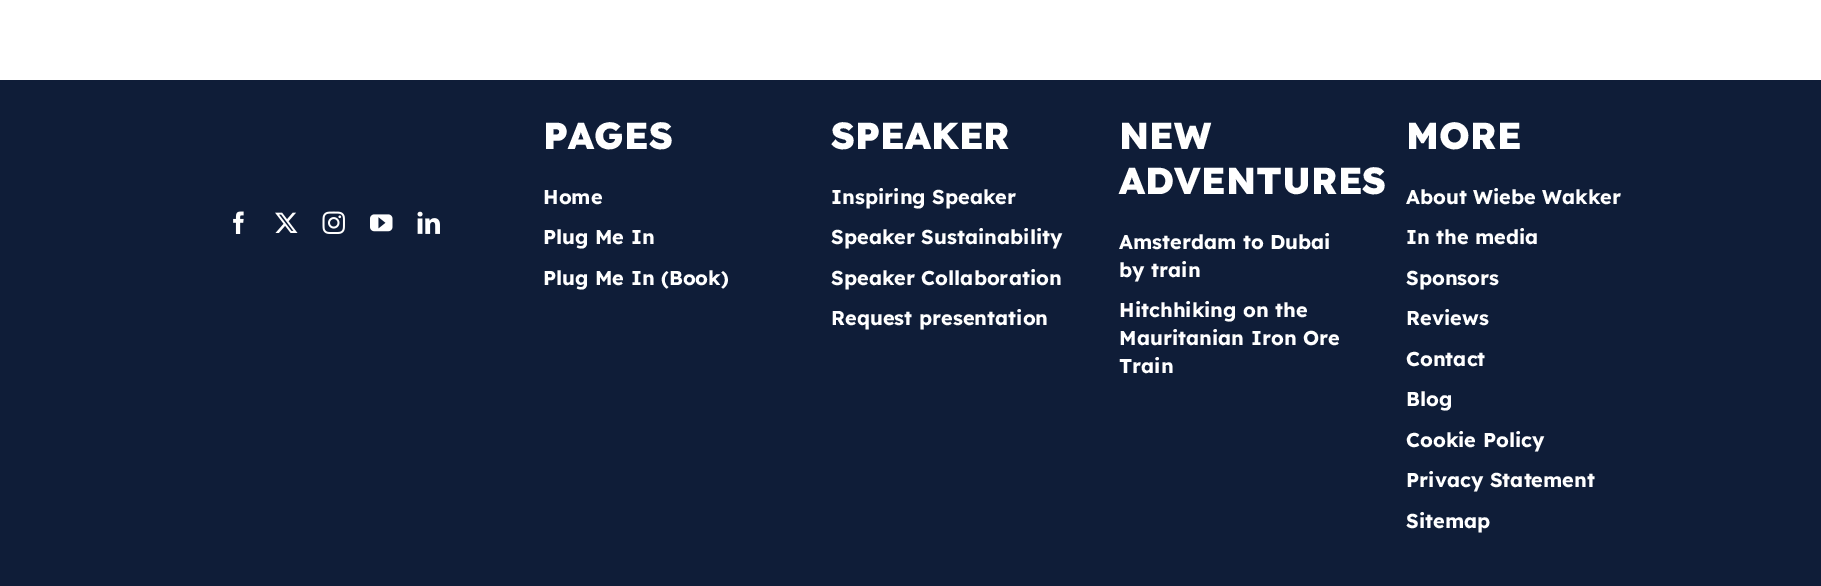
%!PS
<< /PageSize [1821 586] >> setpagedevice
/picture { 5 dict begin { /h /w /y /x /name } { exch def } forall
  gsave x y translate w h scale
  w h 8 [w 0 0 h 0 0] name (r) file false 3 colorimage grestore end } def
0 586 translate 1 -1 scale
4 setmiterlimit
1 setgray
0 0 1821 586 rectfill
0.059 0.114 0.22 setrgbcolor
0 80 1821 506 rectfill
(img1.rgb) 233 211 11 23 picture
(img2.rgb) 275 212 23 21 picture
(img3.rgb) 322 211 23 23 picture
(img4.rgb) 370 214 23 18 picture
(img5.rgb) 417 211 23 23 picture
/LexendDeca-ExtraBold [37.5 0 0 -37.5 0 0] selectfont
1 setgray
543 149 moveto (PAGES) show
/LexendDeca-Bold [20 0 0 -20 0 0] selectfont
543 204 moveto (Home) show
543 244 moveto (Plug Me In) show
543 285 moveto (Plug Me In \(Book\)) show
/LexendDeca-ExtraBold [37.5 0 0 -37.5 0 0] selectfont
831 149 moveto (SPEAKER) show
/LexendDeca-Bold [20 0 0 -20 0 0] selectfont
831 204 moveto (Inspiring Speaker) show
831 244 moveto (Speaker Sustainability) show
831 285 moveto (Speaker Collaboration) show
831 325 moveto (Request presentation) show
/LexendDeca-ExtraBold [37.5 0 0 -37.5 0 0] selectfont
1119 149 moveto (NEW) show
1119 194 moveto (ADVENTURES) show
/LexendDeca-Bold [20 0 0 -20 0 0] selectfont
1119 249 moveto (Amsterdam to Dubai) show
1119 277 moveto (by train) show
1119 317 moveto (Hitchhiking on the) show
1119 345 moveto (Mauritanian Iron Ore) show
1119 373 moveto (Train) show
/LexendDeca-ExtraBold [37.5 0 0 -37.5 0 0] selectfont
1406 149 moveto (MORE) show
/LexendDeca-Bold [20 0 0 -20 0 0] selectfont
1406 204 moveto (About Wiebe Wakker) show
1406 244 moveto (In the media) show
1406 285 moveto (Sponsors) show
1406 325 moveto (Reviews) show
1406 366 moveto (Contact) show
1406 406 moveto (Blog) show
1406 447 moveto (Cookie Policy) show
1406 487 moveto (Privacy Statement) show
1406 528 moveto (Sitemap) show
showpage
